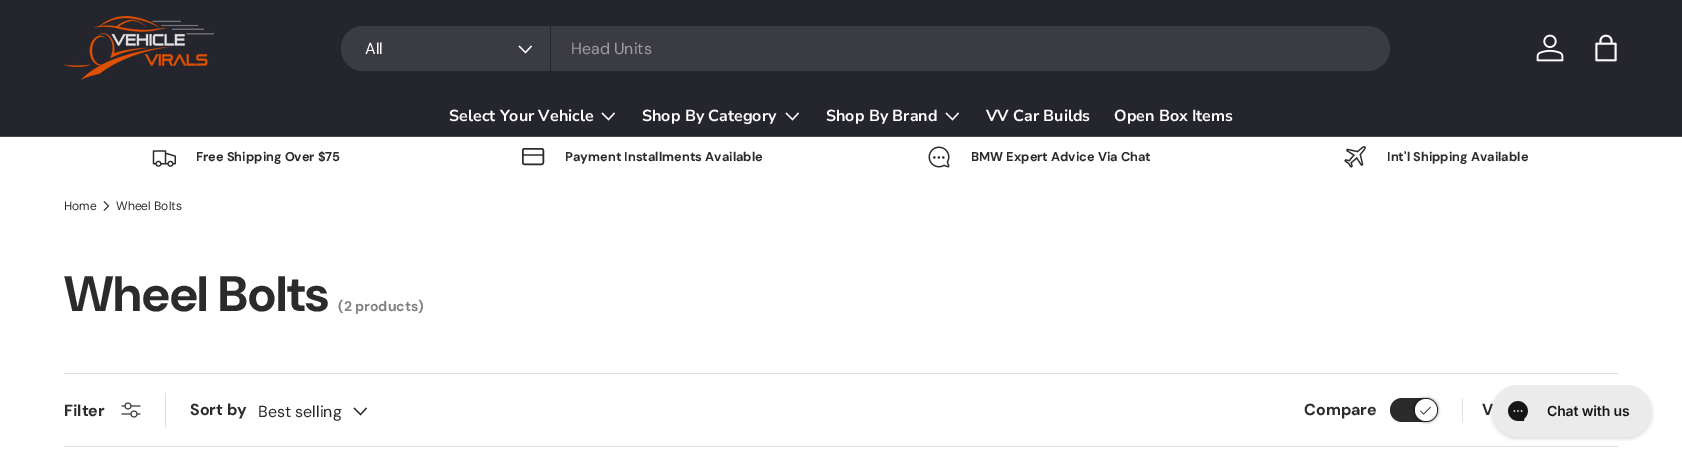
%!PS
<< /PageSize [1682 464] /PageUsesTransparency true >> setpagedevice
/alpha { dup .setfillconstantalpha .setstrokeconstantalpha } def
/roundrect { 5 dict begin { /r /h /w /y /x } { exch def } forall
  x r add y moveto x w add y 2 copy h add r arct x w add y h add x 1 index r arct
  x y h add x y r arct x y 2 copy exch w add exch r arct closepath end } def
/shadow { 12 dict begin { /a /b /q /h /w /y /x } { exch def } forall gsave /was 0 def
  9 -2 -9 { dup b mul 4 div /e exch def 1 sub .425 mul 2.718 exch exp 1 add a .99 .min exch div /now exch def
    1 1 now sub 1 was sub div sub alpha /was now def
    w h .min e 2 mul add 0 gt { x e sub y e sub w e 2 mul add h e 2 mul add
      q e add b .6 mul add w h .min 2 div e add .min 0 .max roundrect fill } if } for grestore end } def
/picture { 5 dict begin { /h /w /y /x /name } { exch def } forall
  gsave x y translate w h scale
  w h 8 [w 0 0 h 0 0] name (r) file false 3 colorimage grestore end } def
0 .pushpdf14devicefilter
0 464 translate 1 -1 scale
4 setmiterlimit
1 setgray
0 0 1682 464 rectfill
0.145 0.145 0.18 setrgbcolor
0 0 1682 136 rectfill
0.275 0.275 0.302 setrgbcolor
0 136 1682 1 rectfill
(img1.rgb) 64 16 150 64 picture
0.231 0.231 0.263 setrgbcolor
341 26 1049 45 22.5 roundrect fill
newpath 363.5 26 moveto 551 26 lineto 551 71 lineto 363.5 71 lineto 351 71 341 61 341 48.5 curveto 341 36 351 26 363.5 26 curveto closepath fill
0.145 0.145 0.18 setrgbcolor
550 26 1 45 rectfill
/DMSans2-Regular [16 0 0 -16 0 0] selectfont
1 setgray
365 54 moveto (All) show
1.2 setlinewidth
newpath 531.5 46 moveto 525.5 52.5 lineto 519 46 lineto stroke
0.616 0.616 0.631 setrgbcolor
571 54 moveto (Head Units) show
(img2.rgb) 1536 34 28 28 picture
(img3.rgb) 1595 34 22 28 picture
/NunitoSans-Bold [16 0 0 -16 0 0] selectfont
1 setgray
449 121 moveto (Select Your Vehicle) show
newpath 614.5 113 moveto 608.5 119.5 lineto 602 113 lineto stroke
642 121 moveto (Shop By Category) show
newpath 798.5 113 moveto 792.5 119.5 lineto 786 113 lineto stroke
826 121 moveto (Shop By Brand) show
newpath 958.5 113 moveto 952.5 119.5 lineto 946 113 lineto stroke
986 121 moveto (VV Car Builds) show
1114 121 moveto (Open Box Items) show
(img4.rgb) 152 150 24 17 picture
/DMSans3-Bold [12.75 0 0 -12.75 0 0] selectfont
0.165 0.169 0.165 setrgbcolor
196 161 moveto (Free Shipping Over $75) show
1.5 setlinewidth
522.75 148.75 20.5 15.5 1.75 roundrect stroke
0.75 alpha
523 154 21 2 rectfill
1 alpha
565 161 moveto (Payment Installments Available) show
(img5.rgb) 928 146 22 22 picture
971 161 moveto (BMW Expert Advice Via Chat) show
(img6.rgb) 1344 146 22 22 picture
1387 161 moveto (Int'l Shipping Available) show
/DMSans-Regular [12 0 0 -12 0 0] selectfont
64 210 moveto (Home) show
0.9 setlinewidth
newpath 104 201.5 moveto 108.5 206 lineto 104 210.5 lineto stroke
116 210 moveto (Wheel Bolts) show
/DMSans-Bold [49.75 0 0 -49.75 0 0] selectfont
64 311 moveto (Wheel Bolts) show
/DMSans2-Bold [14 0 0 -14 0 0] selectfont
0.498 0.502 0.498 setrgbcolor
338 311 moveto (\(2 products\)) show
0.875 setgray
64 373 1554 1 rectfill
64 446 1554 1 rectfill
/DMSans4-Bold [16 0 0 -16 0 0] selectfont
0.165 0.169 0.165 setrgbcolor
64 416 moveto (Filter) show
(img7.rgb) 121 402 20 16 picture
0.875 setgray
165 393 1 35 rectfill
0.165 0.169 0.165 setrgbcolor
190 415 moveto (Sort by) show
/DMSans2-Regular [16 0 0 -16 0 0] selectfont
258 417 moveto (Best selling) show
1.2 setlinewidth
newpath 366.5 408 moveto 360.5 414.5 lineto 354 408 lineto stroke
1390 398 48 24 12 roundrect fill
0 setgray
1413 397 26 26 13 1 0.25 shadow
1 setgray
newpath 1426 410 11 0 360 arc closepath fill
(img8.rgb) 1420 406 11 9 picture
/DMSans4-Bold [16 0 0 -16 0 0] selectfont
0.165 0.169 0.165 setrgbcolor
1304 415 moveto (Compare) show
0.875 setgray
1462 398 1 24 rectfill
0.165 0.169 0.165 setrgbcolor
1482 415 moveto (V) show
(img9.rgb) 1490 385 164 56 picture
.poppdf14devicefilter showpage
